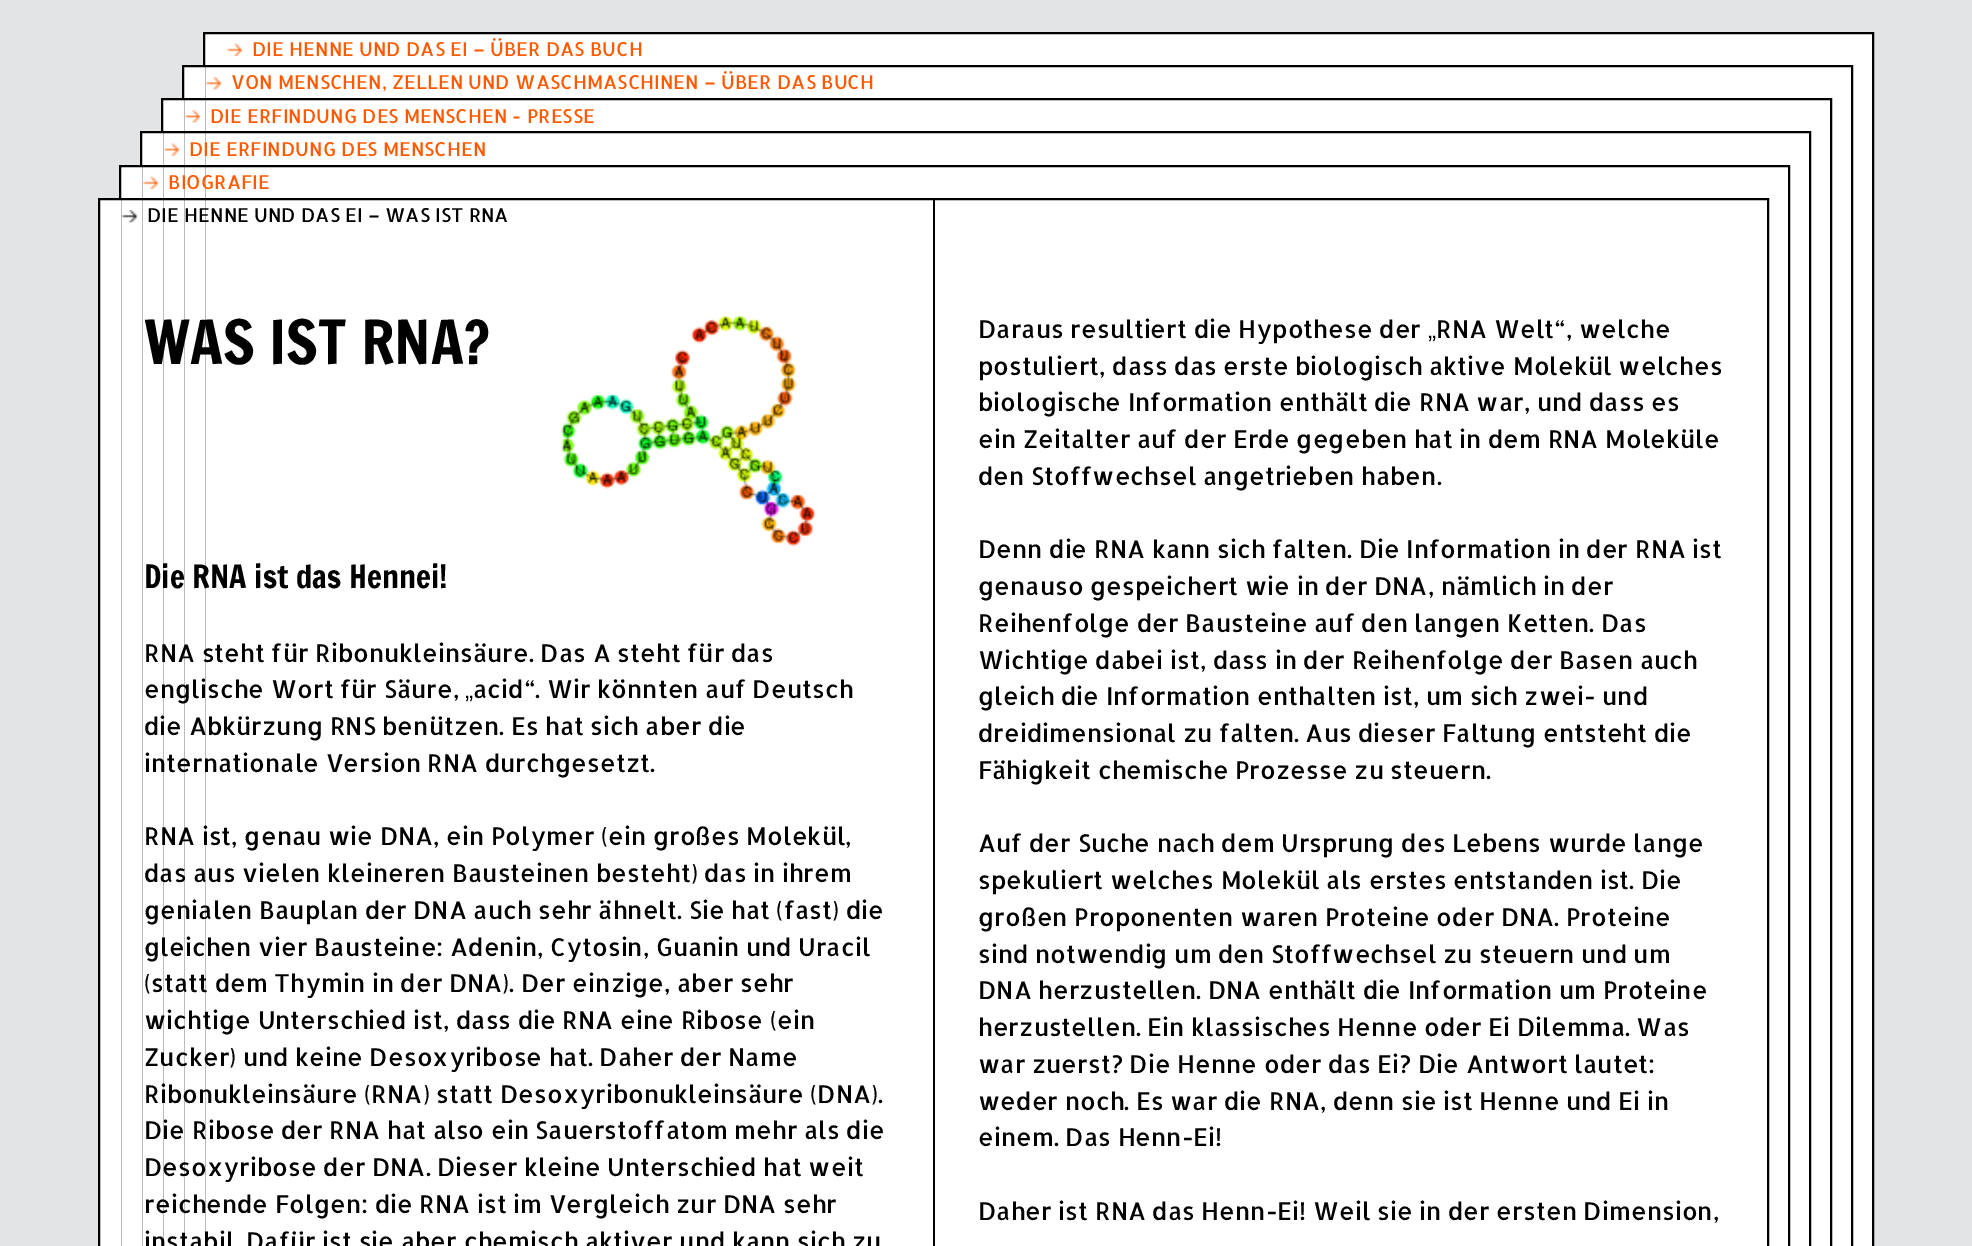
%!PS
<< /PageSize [1972 1246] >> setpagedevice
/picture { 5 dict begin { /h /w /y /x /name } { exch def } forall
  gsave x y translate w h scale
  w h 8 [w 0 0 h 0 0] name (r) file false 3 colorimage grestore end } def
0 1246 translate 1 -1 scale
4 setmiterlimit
0.89 0.894 0.898 setrgbcolor
0 0 1972 1246 rectfill
1 setgray
newpath 204 33 moveto 1873 33 lineto 1873 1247 lineto 204 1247 lineto closepath gsave fill grestore
0 setgray
2 setlinewidth
stroke
(img1.rgb) 227 43 16 13 picture
/Allerta-Regular [19.25 0 0 -19.25 0 0] selectfont
1 0.353 0 setrgbcolor
252 56 moveto (DIE HENNE UND DAS EI – ÜBER DAS BUCH) show
1 setgray
184 67 21 1179 rectfill
0 setgray
183 66 1669 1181 rectstroke
(img2.rgb) 206 77 16 13 picture
1 0.353 0 setrgbcolor
231 89 moveto (VON MENSCHEN, ZELLEN UND WASCHMASCHINEN – ÜBER DAS BUCH) show
1 setgray
163 100 21 1146 rectfill
0 setgray
162 99 1669 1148 rectstroke
(img3.rgb) 185 110 16 13 picture
1 0.353 0 setrgbcolor
210 123 moveto (DIE ERFINDUNG DES MENSCHEN - PRESSE) show
1 setgray
142 133 21 1113 rectfill
0 setgray
141 132 1669 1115 rectstroke
(img4.rgb) 164 143 16 13 picture
1 0.353 0 setrgbcolor
189 156 moveto (DIE ERFINDUNG DES MENSCHEN) show
1 setgray
121 167 21 1079 rectfill
0 setgray
120 166 1669 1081 rectstroke
(img1.rgb) 143 176 16 13 picture
1 0.353 0 setrgbcolor
168 189 moveto (BIOGRAFIE) show
1 setgray
100 200 21 1046 rectfill
(img5.rgb) 561 314 255 233 picture
0 setgray
99 199 1669 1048 rectstroke
(img6.rgb) 122 210 16 13 picture
147 222 moveto (DIE HENNE UND DAS EI – WAS IST RNA) show
933 200 2 1046 rectfill
/FrancoisOne-Regular [59.5 0 0 -59.5 0 0] selectfont
144 364 moveto (WAS IST RNA?) show
/FrancoisOne-Regular [31.5 0 0 -31.5 0 0] selectfont
144 588 moveto (Die RNA ist das Hennei!) show
/Allerta-Regular [24.5 0 0 -24.5 0 0] selectfont
144 662 moveto (RNA steht für Ribonukleinsäure. Das A steht für das) show
144 698 moveto (englische Wort für Säure,) show
/LiberationSans-Regular [24.5 0 0 -24.5 0 0] selectfont
465 698 moveto („) show
/Allerta-Regular [24.5 0 0 -24.5 0 0] selectfont
473 698 moveto (acid“. Wir könnten auf Deutsch) show
144 735 moveto (die Abkürzung RNS benützen. Es hat sich aber die) show
144 772 moveto (internationale Version RNA durchgesetzt.) show
144 845 moveto (RNA ist, genau wie DNA, ein Polymer \(ein großes Molekül,) show
144 882 moveto (das aus vielen kleineren Bausteinen besteht\) das in ihrem) show
144 919 moveto (genialen Bauplan der DNA auch sehr ähnelt. Sie hat \(fast\) die) show
144 956 moveto (gleichen vier Bausteine: Adenin, Cytosin, Guanin und Uracil) show
144 992 moveto (\(statt dem Thymin in der DNA\). Der einzige, aber sehr) show
144 1029 moveto (wichtige Unterschied ist, dass die RNA eine Ribose \(ein) show
144 1066 moveto (Zucker\) und keine Desoxyribose hat. Daher der Name) show
144 1103 moveto (Ribonukleinsäure \(RNA\) statt Desoxyribonukleinsäure \(DNA\).) show
144 1139 moveto (Die Ribose der RNA hat also ein Sauerstoffatom mehr als die) show
144 1176 moveto (Desoxyribose der DNA. Dieser kleine Unterschied hat weit) show
144 1213 moveto (reichende Folgen: die RNA ist im Vergleich zur DNA sehr) show
144 1250 moveto (instabil. Dafür ist sie aber chemisch aktiver und kann sich zu) show
978 338 moveto (Daraus resultiert die Hypothese der) show
/LiberationSans-Regular [24.5 0 0 -24.5 0 0] selectfont
1428 338 moveto („) show
/Allerta-Regular [24.5 0 0 -24.5 0 0] selectfont
1436 338 moveto (RNA Welt“, welche) show
978 375 moveto (postuliert, dass das erste biologisch aktive Molekül welches) show
978 411 moveto (biologische Information enthält die RNA war, und dass es) show
978 448 moveto (ein Zeitalter auf der Erde gegeben hat in dem RNA Moleküle) show
978 485 moveto (den Stoffwechsel angetrieben haben.) show
978 558 moveto (Denn die RNA kann sich falten. Die Information in der RNA ist) show
978 595 moveto (genauso gespeichert wie in der DNA, nämlich in der) show
978 632 moveto (Reihenfolge der Bausteine auf den langen Ketten. Das) show
978 669 moveto (Wichtige dabei ist, dass in der Reihenfolge der Basen auch) show
978 705 moveto (gleich die Information enthalten ist, um sich zwei- und) show
978 742 moveto (dreidimensional zu falten. Aus dieser Faltung entsteht die) show
978 779 moveto (Fähigkeit chemische Prozesse zu steuern.) show
978 852 moveto (Auf der Suche nach dem Ursprung des Lebens wurde lange) show
978 889 moveto (spekuliert welches Molekül als erstes entstanden ist. Die) show
978 926 moveto (großen Proponenten waren Proteine oder DNA. Proteine) show
978 963 moveto (sind notwendig um den Stoffwechsel zu steuern und um) show
978 999 moveto (DNA herzustellen. DNA enthält die Information um Proteine) show
978 1036 moveto (herzustellen. Ein klassisches Henne oder Ei Dilemma. Was) show
978 1073 moveto (war zuerst? Die Henne oder das Ei? Die Antwort lautet:) show
978 1110 moveto (weder noch. Es war die RNA, denn sie ist Henne und Ei in) show
978 1146 moveto (einem. Das Henn-Ei!) show
978 1220 moveto (Daher ist RNA das Henn-Ei! Weil sie in der ersten Dimension,) show
showpage
